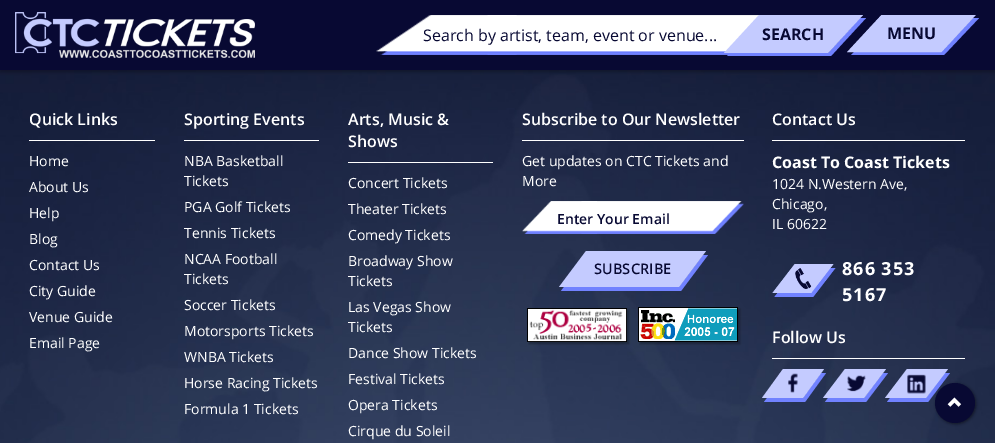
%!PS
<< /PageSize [995 443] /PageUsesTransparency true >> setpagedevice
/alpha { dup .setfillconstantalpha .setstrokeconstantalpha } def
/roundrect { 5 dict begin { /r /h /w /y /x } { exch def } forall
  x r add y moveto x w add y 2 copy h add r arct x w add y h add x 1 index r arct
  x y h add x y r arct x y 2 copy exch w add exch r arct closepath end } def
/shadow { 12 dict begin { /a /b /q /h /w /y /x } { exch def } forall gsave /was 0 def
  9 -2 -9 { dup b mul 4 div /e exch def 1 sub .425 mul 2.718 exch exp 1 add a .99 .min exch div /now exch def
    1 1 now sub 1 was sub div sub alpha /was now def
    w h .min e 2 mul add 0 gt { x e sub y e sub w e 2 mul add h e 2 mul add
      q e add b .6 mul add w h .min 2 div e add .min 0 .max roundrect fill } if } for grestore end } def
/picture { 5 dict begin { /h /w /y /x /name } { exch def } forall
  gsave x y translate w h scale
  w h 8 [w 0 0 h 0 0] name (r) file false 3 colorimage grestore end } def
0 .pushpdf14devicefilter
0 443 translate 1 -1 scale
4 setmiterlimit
1 setgray
0 0 995 443 rectfill
(img3.rgb) 0 70 995 373 picture
0 setgray
0 2 995 70 0 2 0.3 shadow
0.031 0.035 0.2 setrgbcolor
0 0 995 70 rectfill
(img1.rgb) 15 12 240 46 picture
(img2.rgb) 376 15 383 40 picture
/OpenSans-Regular [16 0 0 -16 0 0] selectfont
423 41 moveto (Search by artist, team, event or venue...) show
0.443 0.51 1 setrgbcolor
newpath 730 53 moveto 727 56 lineto 831 56 lineto 866 18 lineto 860 18 lineto 828 53 lineto closepath fill
0.769 0.796 1 setrgbcolor
newpath 759 15 moveto 863 15 lineto 828 53 lineto 724 53 lineto closepath fill
/OpenSans-Bold [16 0 0 -16 0 0] selectfont
0.031 0.035 0.2 setrgbcolor
762 40 moveto (SEARCH) show
0.443 0.51 1 setrgbcolor
newpath 854 52 moveto 851 55 lineto 944 55 lineto 979 18 lineto 973 18 lineto 941 52 lineto closepath fill
0.769 0.796 1 setrgbcolor
newpath 882 15 moveto 975 15 lineto 941 52 lineto 848 52 lineto closepath fill
2 setlinewidth
newpath 882 16 moveto 973.5 16 lineto 941 51 lineto 849.5 51 lineto closepath stroke
0.031 0.035 0.2 setrgbcolor
887 39 moveto (MENU) show
1 setgray
29 140 126 1 rectfill
/OpenSans-SemiBold [16 0 0 -16 0 0] selectfont
29 125 moveto (Quick Links) show
/OpenSans-Regular [14 0 0 -14 0 0] selectfont
29 166 moveto (Home) show
29 192 moveto (About Us) show
29 218 moveto (Help) show
29 244 moveto (Blog) show
29 270 moveto (Contact Us) show
29 296 moveto (City Guide) show
29 322 moveto (Venue Guide) show
29 348 moveto (Email Page) show
184 140 135 1 rectfill
/OpenSans-SemiBold [16 0 0 -16 0 0] selectfont
184 125 moveto (Sporting Events) show
/OpenSans-Regular [14 0 0 -14 0 0] selectfont
184 166 moveto (NBA Basketball) show
184 186 moveto (Tickets) show
184 212 moveto (PGA Golf Tickets) show
184 238 moveto (Tennis Tickets) show
184 264 moveto (NCAA Football) show
184 284 moveto (Tickets) show
184 310 moveto (Soccer Tickets) show
184 336 moveto (Motorsports Tickets) show
184 362 moveto (WNBA Tickets) show
184 388 moveto (Horse Racing Tickets) show
184 414 moveto (Formula 1 Tickets) show
348 162 145 1 rectfill
/OpenSans-SemiBold [16 0 0 -16 0 0] selectfont
348 125 moveto (Arts, Music &) show
348 147 moveto (Shows) show
/OpenSans-Regular [14 0 0 -14 0 0] selectfont
348 188 moveto (Concert Tickets) show
348 214 moveto (Theater Tickets) show
348 240 moveto (Comedy Tickets) show
348 266 moveto (Broadway Show) show
348 286 moveto (Tickets) show
348 312 moveto (Las Vegas Show) show
348 332 moveto (Tickets) show
348 358 moveto (Dance Show Tickets) show
348 384 moveto (Festival Tickets) show
348 410 moveto (Opera Tickets) show
348 436 moveto (Cirque du Soleil) show
522 140 222 1 rectfill
/OpenSans-SemiBold [16 0 0 -16 0 0] selectfont
522 125 moveto (Subscribe to Our Newsletter) show
/OpenSans-Regular [14 0 0 -14 0 0] selectfont
522 166 moveto (Get updates on CTC Tickets and) show
522 186 moveto (More) show
(img4.rgb) 522 201 222 33 picture
/OpenSans-SemiBold [14 0 0 -14 0 0] selectfont
0.031 0.035 0.2 setrgbcolor
557 224 moveto (Enter Your Email) show
0.443 0.51 1 setrgbcolor
newpath 564 287 moveto 561 291 lineto 681 291 lineto 708 255 lineto 703 255 lineto 679 287 lineto closepath fill
0.769 0.796 1 setrgbcolor
newpath 586 251 moveto 706 251 lineto 679 287 lineto 559 287 lineto closepath fill
/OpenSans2-Bold [14 0 0 -14 0 0] selectfont
0.031 0.035 0.2 setrgbcolor
594 274 moveto 0.5 0 (SUBSCRIBE) ashow
0 setgray
529 310 100 34 0 1 0.3 shadow
(img5.rgb) 527 308 100 34 picture
640 309 100 35 0 1 0.3 shadow
(img6.rgb) 638 307 100 35 picture
1 setgray
772 140 193 1 rectfill
/OpenSans-SemiBold [16 0 0 -16 0 0] selectfont
772 125 moveto (Contact Us) show
/OpenSans-Bold [16 0 0 -16 0 0] selectfont
772 168 moveto (Coast To Coast Tickets) show
/OpenSans-Regular [14 0 0 -14 0 0] selectfont
772 189 moveto (1024 N.Western Ave,) show
772 209 moveto (Chicago,) show
772 229 moveto (IL 60622) show
(img7.rgb) 772 264 64 33 picture
/OpenSans-Bold [18 0 0 -18 0 0] selectfont
842 275 moveto 1 0 (866 353) ashow
842 301 moveto 1 0 (5167) ashow
772 358 193 1 rectfill
/OpenSans-SemiBold [16 0 0 -16 0 0] selectfont
772 343 moveto (Follow Us) show
0.443 0.51 1 setrgbcolor
newpath 767 398 moveto 764 402 lineto 805 402 lineto 826 373 lineto 821 373 lineto 803 398 lineto closepath fill
0.769 0.796 1 setrgbcolor
newpath 783 369 moveto 824 369 lineto 803 398 lineto 762 398 lineto closepath fill
(img8.rgb) 788 373 10 20 picture
0.443 0.51 1 setrgbcolor
newpath 828 398 moveto 825 402 lineto 866 402 lineto 888 373 lineto 883 373 lineto 864 398 lineto closepath fill
0.769 0.796 1 setrgbcolor
newpath 845 369 moveto 886 369 lineto 864 398 lineto 823 398 lineto closepath fill
(img9.rgb) 847 375 19 17 picture
0.443 0.51 1 setrgbcolor
newpath 890 398 moveto 887 402 lineto 928 402 lineto 950 373 lineto 944 373 lineto 926 398 lineto closepath fill
0.769 0.796 1 setrgbcolor
newpath 907 369 moveto 948 369 lineto 926 398 lineto 885 398 lineto closepath fill
(img10.rgb) 907 374 19 20 picture
0 setgray
936 384 40 40 20 1.5 0.5 shadow
0.031 0.035 0.2 setrgbcolor
newpath 955 403 20 0 360 arc closepath fill
(img11.rgb) 947 397 15 10 picture
.poppdf14devicefilter showpage
